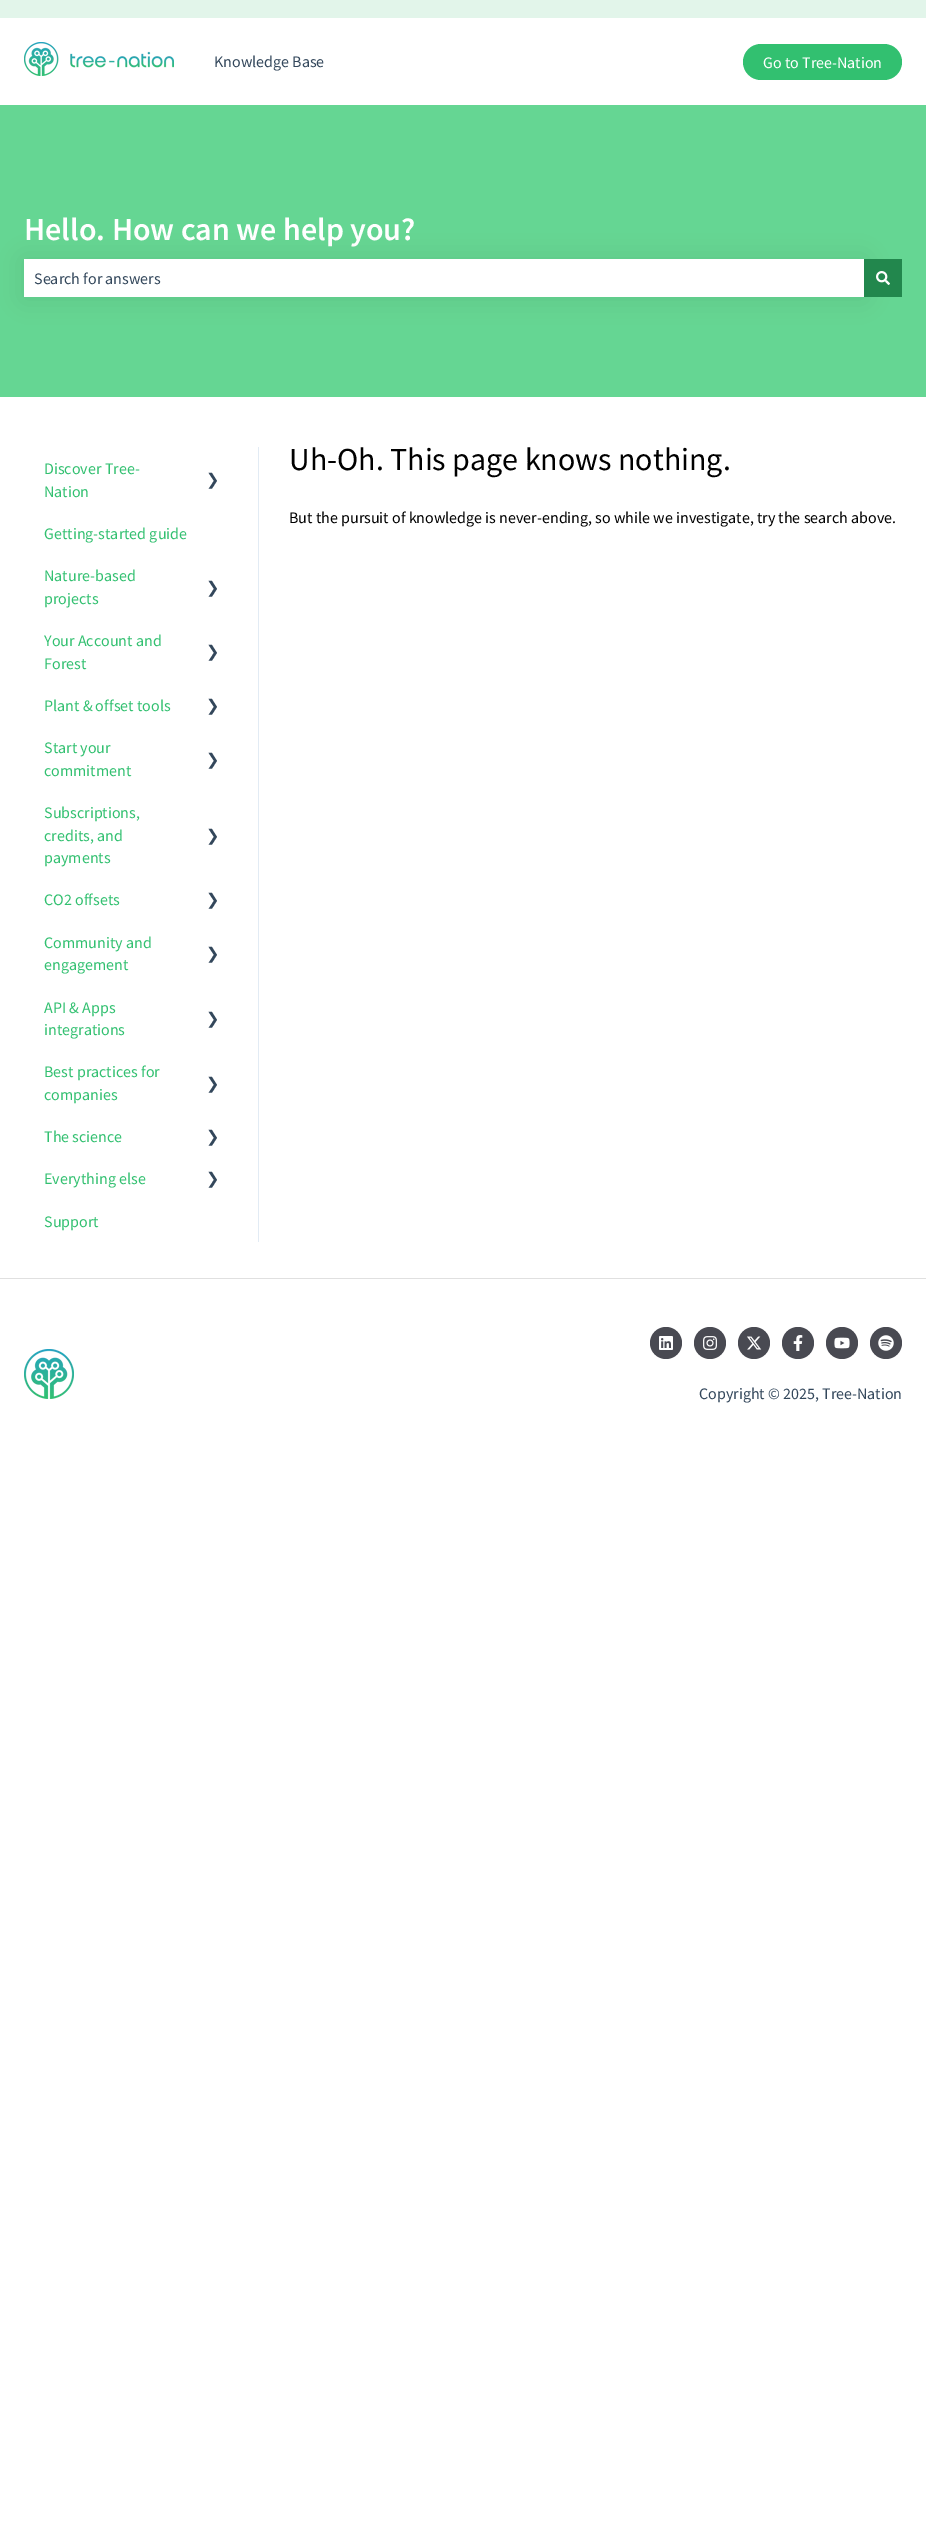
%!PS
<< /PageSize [926 2524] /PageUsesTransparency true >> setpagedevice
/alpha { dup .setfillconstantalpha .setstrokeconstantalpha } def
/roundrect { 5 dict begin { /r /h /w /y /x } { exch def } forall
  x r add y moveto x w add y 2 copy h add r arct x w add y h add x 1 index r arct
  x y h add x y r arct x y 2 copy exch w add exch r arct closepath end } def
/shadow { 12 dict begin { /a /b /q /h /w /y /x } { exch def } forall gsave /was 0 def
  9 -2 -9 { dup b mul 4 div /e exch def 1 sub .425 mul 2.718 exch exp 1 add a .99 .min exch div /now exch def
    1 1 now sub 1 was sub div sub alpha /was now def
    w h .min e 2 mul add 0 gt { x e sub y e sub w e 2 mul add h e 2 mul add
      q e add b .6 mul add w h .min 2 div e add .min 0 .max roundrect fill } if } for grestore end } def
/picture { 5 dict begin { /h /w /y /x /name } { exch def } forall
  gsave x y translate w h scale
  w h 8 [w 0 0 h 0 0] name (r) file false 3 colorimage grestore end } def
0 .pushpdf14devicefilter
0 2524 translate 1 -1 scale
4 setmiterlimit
1 setgray
0 0 926 2524 rectfill
0.886 0.961 0.918 setrgbcolor
0 0 926 18 rectfill
(img1.rgb) 24 42 150 34 picture
/SourceSansPro-Regular [16 0 0 -16 0 0] selectfont
0.2 0.278 0.357 setrgbcolor
214 67 moveto (Knowledge Base) show
0.196 0.753 0.439 setrgbcolor
743 44 159 36 18 roundrect fill
1 setgray
763 68 moveto (Go to Tree-Nation) show
0.396 0.839 0.576 setrgbcolor
0 105 926 292 rectfill
/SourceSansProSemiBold-SemiBold [32 0 0 -32 0 0] selectfont
1 setgray
24 240 moveto (Hello. How can we help you?) show
0 setgray
24 260 840 38 0 12 0.08 shadow
1 setgray
24 259 840 38 rectfill
/SourceSansPro-Regular [16 0 0 -16 0 0] selectfont
0.2 0.278 0.357 setrgbcolor
34 284 moveto (Search for answers) show
0.133 0.529 0.302 setrgbcolor
864 259 38 38 rectfill
(img2.rgb) 876 271 14 14 picture
0.886 0.922 0.957 setrgbcolor
258 447 1 795 rectfill
0.196 0.753 0.439 setrgbcolor
44 474 moveto (Discover Tree-) show
44 497 moveto (Nation) show
/DejaVuSans-Regular [16 0 0 -16 0 0] selectfont
0.2 0.278 0.357 setrgbcolor
206 485 moveto (❯) show
/SourceSansPro-Regular [16 0 0 -16 0 0] selectfont
0.196 0.753 0.439 setrgbcolor
44 539 moveto (Getting-started guide) show
44 581 moveto (Nature-based) show
44 604 moveto (projects) show
/DejaVuSans-Regular [16 0 0 -16 0 0] selectfont
0.2 0.278 0.357 setrgbcolor
206 593 moveto (❯) show
/SourceSansPro-Regular [16 0 0 -16 0 0] selectfont
0.196 0.753 0.439 setrgbcolor
44 646 moveto (Your Account and) show
44 669 moveto (Forest) show
/DejaVuSans-Regular [16 0 0 -16 0 0] selectfont
0.2 0.278 0.357 setrgbcolor
206 657 moveto (❯) show
/SourceSansPro-Regular [16 0 0 -16 0 0] selectfont
0.196 0.753 0.439 setrgbcolor
44 711 moveto (Plant & offset tools) show
/DejaVuSans-Regular [16 0 0 -16 0 0] selectfont
0.2 0.278 0.357 setrgbcolor
206 711 moveto (❯) show
/SourceSansPro-Regular [16 0 0 -16 0 0] selectfont
0.196 0.753 0.439 setrgbcolor
44 753 moveto (Start your) show
44 776 moveto (commitment) show
/DejaVuSans-Regular [16 0 0 -16 0 0] selectfont
0.2 0.278 0.357 setrgbcolor
206 765 moveto (❯) show
/SourceSansPro-Regular [16 0 0 -16 0 0] selectfont
0.196 0.753 0.439 setrgbcolor
44 818 moveto (Subscriptions,) show
44 841 moveto (credits, and) show
44 863 moveto (payments) show
/DejaVuSans-Regular [16 0 0 -16 0 0] selectfont
0.2 0.278 0.357 setrgbcolor
206 841 moveto (❯) show
/SourceSansPro-Regular [16 0 0 -16 0 0] selectfont
0.196 0.753 0.439 setrgbcolor
44 905 moveto (CO2 offsets) show
/DejaVuSans-Regular [16 0 0 -16 0 0] selectfont
0.2 0.278 0.357 setrgbcolor
206 905 moveto (❯) show
/SourceSansPro-Regular [16 0 0 -16 0 0] selectfont
0.196 0.753 0.439 setrgbcolor
44 948 moveto (Community and) show
44 970 moveto (engagement) show
/DejaVuSans-Regular [16 0 0 -16 0 0] selectfont
0.2 0.278 0.357 setrgbcolor
206 959 moveto (❯) show
/SourceSansPro-Regular [16 0 0 -16 0 0] selectfont
0.196 0.753 0.439 setrgbcolor
44 1013 moveto (API & Apps) show
44 1035 moveto (integrations) show
/DejaVuSans-Regular [16 0 0 -16 0 0] selectfont
0.2 0.278 0.357 setrgbcolor
206 1024 moveto (❯) show
/SourceSansPro-Regular [16 0 0 -16 0 0] selectfont
0.196 0.753 0.439 setrgbcolor
44 1077 moveto (Best practices for) show
44 1100 moveto (companies) show
/DejaVuSans-Regular [16 0 0 -16 0 0] selectfont
0.2 0.278 0.357 setrgbcolor
206 1089 moveto (❯) show
/SourceSansPro-Regular [16 0 0 -16 0 0] selectfont
0.196 0.753 0.439 setrgbcolor
44 1142 moveto (The science) show
/DejaVuSans-Regular [16 0 0 -16 0 0] selectfont
0.2 0.278 0.357 setrgbcolor
206 1142 moveto (❯) show
/SourceSansPro-Regular [16 0 0 -16 0 0] selectfont
0.196 0.753 0.439 setrgbcolor
44 1184 moveto (Everything else) show
/DejaVuSans-Regular [16 0 0 -16 0 0] selectfont
0.2 0.278 0.357 setrgbcolor
206 1184 moveto (❯) show
/SourceSansPro-Regular [16 0 0 -16 0 0] selectfont
0.196 0.753 0.439 setrgbcolor
44 1227 moveto (Support) show
/SourceSansPro-Regular [32 0 0 -32 0 0] selectfont
0 setgray
289 470 moveto (Uh-Oh. This page knows nothing.) show
/SourceSansPro-Regular [16 0 0 -16 0 0] selectfont
289 523 moveto (But the pursuit of knowledge is never-ending, so while we investigate, try the search above.) show
0.878 setgray
0 1278 926 1 rectfill
(img3.rgb) 24 1349 50 50 picture
0.286 0.29 0.322 setrgbcolor
newpath 666 1343 16 0 360 arc closepath fill
(img4.rgb) 659 1336 14 14 picture
newpath 710 1343 16 0 360 arc closepath fill
(img5.rgb) 703 1336 14 14 picture
newpath 754 1343 16 0 360 arc closepath fill
(img6.rgb) 747 1336 15 14 picture
newpath 798 1343 16 0 360 arc closepath fill
(img7.rgb) 793 1335 10 16 picture
newpath 842 1343 16 0 360 arc closepath fill
(img8.rgb) 834 1337 16 12 picture
newpath 886 1343 16 0 360 arc closepath fill
(img9.rgb) 878 1335 16 16 picture
0.2 0.278 0.357 setrgbcolor
699 1399 moveto (Copyright © 2025, Tree-Nation) show
.poppdf14devicefilter showpage
